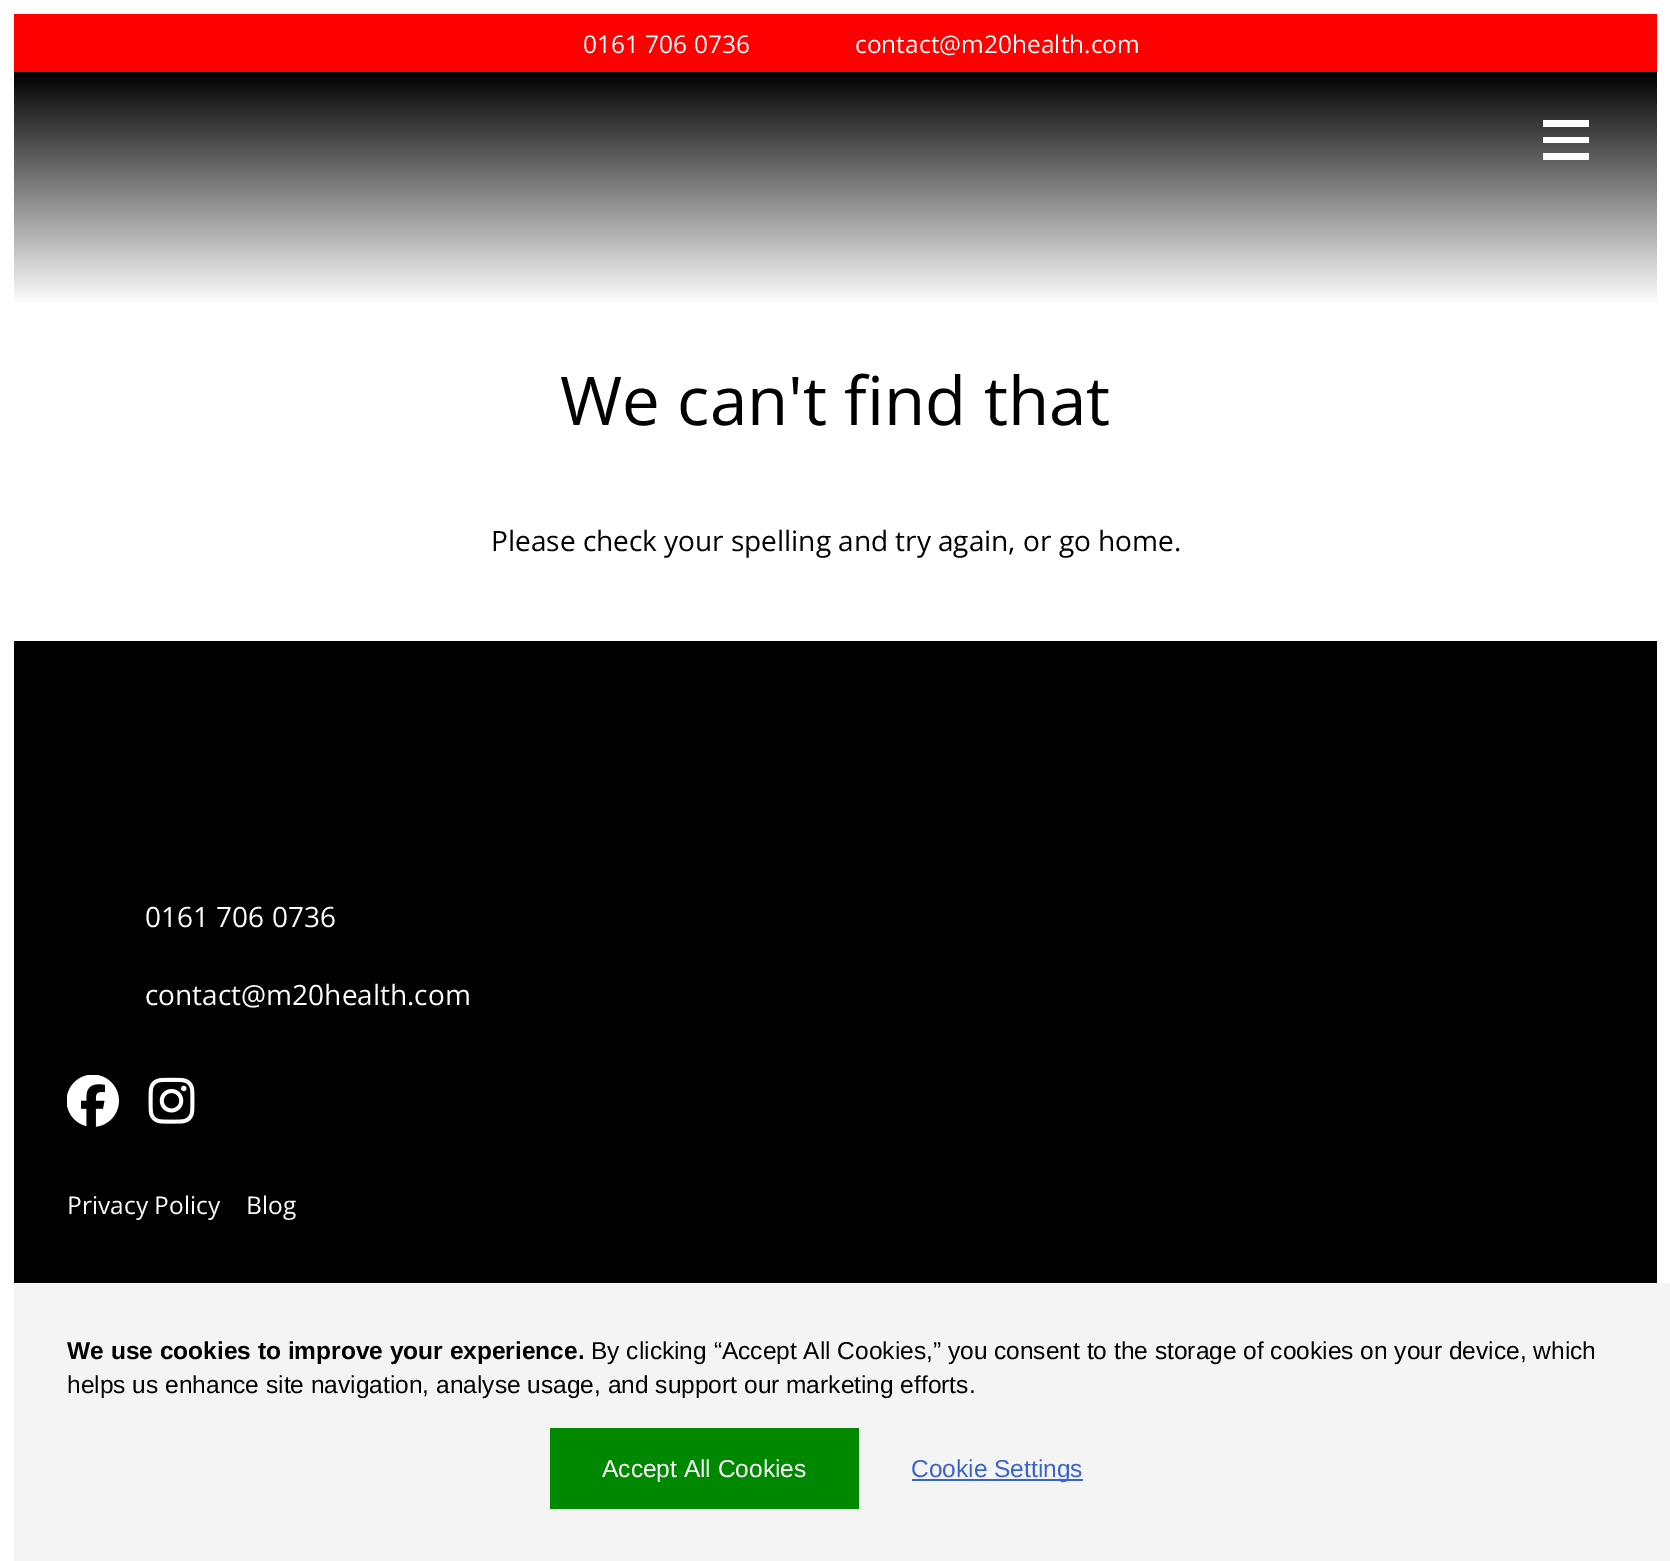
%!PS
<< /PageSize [1670 1561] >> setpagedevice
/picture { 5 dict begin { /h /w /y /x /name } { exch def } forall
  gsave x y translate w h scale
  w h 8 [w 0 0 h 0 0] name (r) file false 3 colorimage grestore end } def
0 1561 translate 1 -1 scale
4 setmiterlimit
1 setgray
0 0 1670 1561 rectfill
1 0 0 setrgbcolor
14 14 1643 58 rectfill
/OpenSans-Regular [24.5 0 0 -24.5 0 0] selectfont
1 setgray
583 53 moveto (0161 706 0736) show
855 53 moveto (contact@m20health.com) show
gsave newpath 14 72 moveto 1657 72 lineto 1657 303 lineto 14 303 lineto closepath clip newpath
<< /ShadingType 2 /ColorSpace /DeviceRGB /Coords [836 72 836 305] /Extend [true true] /Function << /FunctionType 2 /Domain [0 1] /C0 [0 0 0] /C1 [1 1 1] /N 1 >> >> shfill grestore
/OpenSans-Regular [67.25 0 0 -67.25 0 0] selectfont
0 setgray
560 425 moveto (We can't find that) show
/OpenSans-Regular [28 0 0 -28 0 0] selectfont
491 551 moveto (Please check your spelling and try again, or go home.) show
1 setgray
newpath 1543 120 moveto 1589 120 lineto 1589 127 lineto 1543 127 lineto closepath 1543 137 moveto 1589 137 lineto 1589 143 lineto 1543 143 lineto closepath 1589 153 moveto 1589 160 lineto 1543 160 lineto 1543 153 lineto closepath fill
0 setgray
14 641 1643 642 rectfill
1 setgray
145 927 moveto (0161 706 0736) show
145 1005 moveto (contact@m20health.com) show
(img1.rgb) 67 1075 52 52 picture
(img2.rgb) 148 1077 47 47 picture
/OpenSans-Regular [24.5 0 0 -24.5 0 0] selectfont
67 1214 moveto (Privacy Policy) show
246 1214 moveto (Blog) show
0.957 setgray
14 1283 1656 278 rectfill
/LiberationSans-Bold [24.5 0 0 -24.5 0 0] selectfont
0 setgray
67 1359 moveto (We use cookies to improve your experience.) show
/LiberationSans-Regular [24.5 0 0 -24.5 0 0] selectfont
591 1359 moveto (By clicking “Accept All Cookies,” you consent to the storage of cookies on your device, which) show
67 1393 moveto (helps us enhance site navigation, analyse usage, and support our marketing efforts.) show
0 0.533 0 setrgbcolor
550 1428 309 81 rectfill
1 setgray
602 1477 moveto (Accept All Cookies) show
0.227 0.392 0.796 setrgbcolor
912 1479 171 2 rectfill
911 1477 moveto (Cookie Settings) show
showpage
